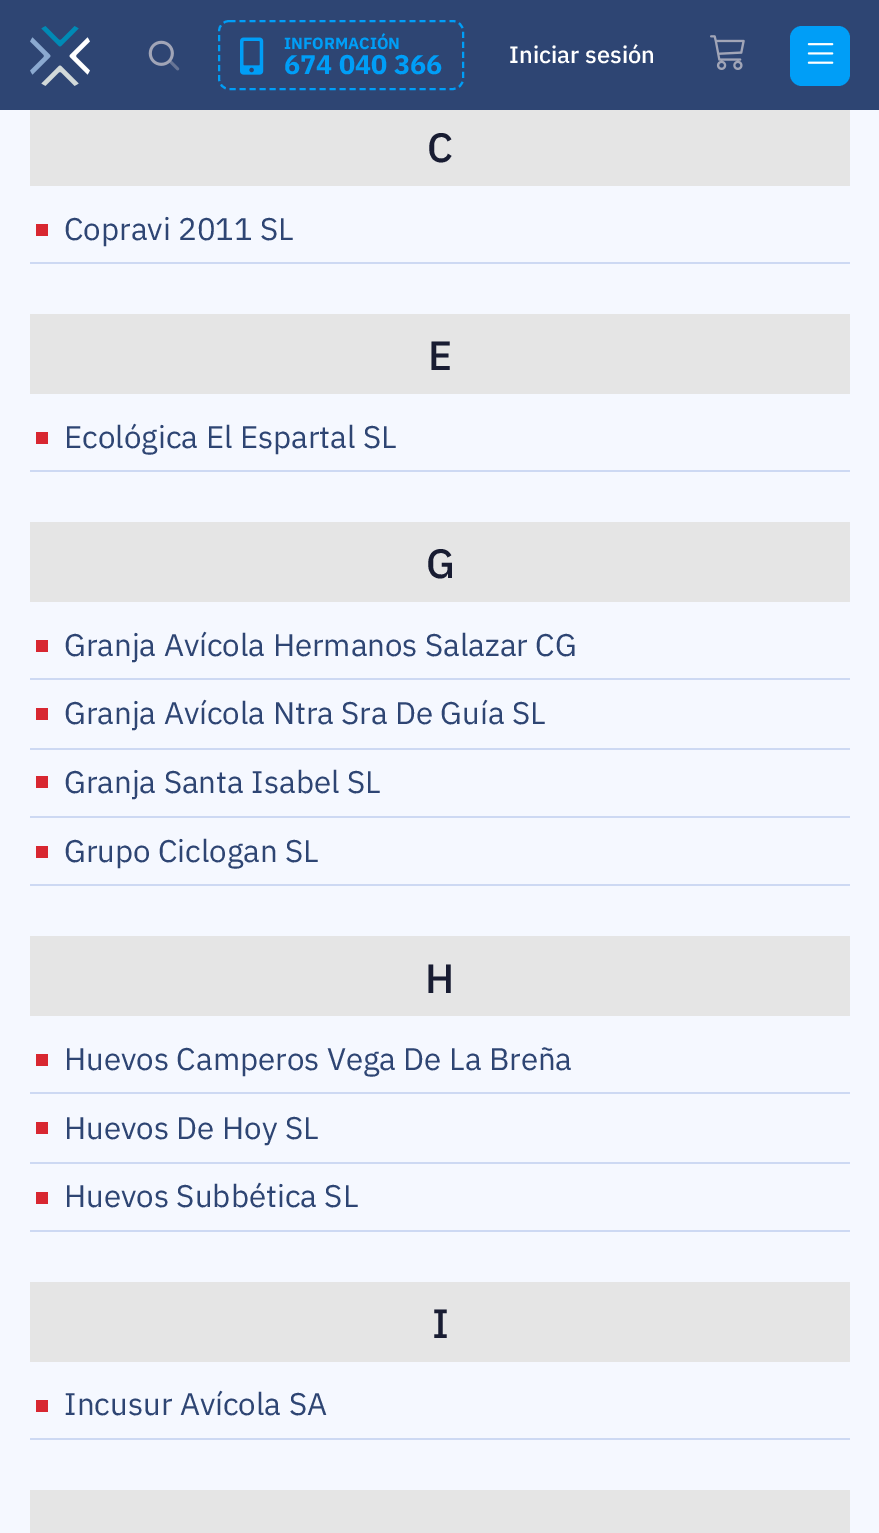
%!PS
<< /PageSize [879 1533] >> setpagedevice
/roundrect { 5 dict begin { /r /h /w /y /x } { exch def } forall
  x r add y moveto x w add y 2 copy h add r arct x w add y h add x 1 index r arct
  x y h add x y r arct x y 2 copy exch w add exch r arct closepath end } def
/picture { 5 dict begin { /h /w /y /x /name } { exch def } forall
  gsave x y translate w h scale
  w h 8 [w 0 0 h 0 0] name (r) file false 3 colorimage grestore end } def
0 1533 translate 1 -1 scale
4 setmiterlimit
0.961 0.973 1 setrgbcolor
0 0 879 1533 rectfill
0.18 0.271 0.451 setrgbcolor
0 0 879 110 rectfill
(img1.rgb) 30 26 60 60 picture
(img2.rgb) 148 40 32 31 picture
0 0.62 0.969 setrgbcolor
2 setlinewidth
[6 4] 0 setdash
newpath 229.5 21 moveto 452.5 21 lineto 458.5 21 463 25.5 463 31.5 curveto 463 78.5 lineto 463 84.5 458.5 89 452.5 89 curveto 229.5 89 lineto 223.5 89 219 84.5 219 78.5 curveto 219 31.5 lineto 219 25.5 223.5 21 229.5 21 curveto closepath stroke
(img3.rgb) 240 37 24 38 picture
/IBMPlexSans-Bold [16.25 0 0 -16.25 0 0] selectfont
284 49 moveto (INFORMACIÓN) show
/IBMPlexSans-Bold [27 0 0 -27 0 0] selectfont
284 74 moveto (674 040 366) show
/IBMPlexSans-Medium [23.75 0 0 -23.75 0 0] selectfont
1 setgray
509 63 moveto (Iniciar sesión) show
(img4.rgb) 710 35 35 35 picture
0 0.62 0.969 setrgbcolor
790 26 60 60 12 roundrect fill
(img5.rgb) 807 43 27 21 picture
0.898 setgray
30 110 820 76 rectfill
/IBMPlexSans-Medium [41 0 0 -41 0 0] selectfont
0.094 0.11 0.196 setrgbcolor
427 162 moveto (C) show
0.804 0.851 0.953 setrgbcolor
30 262 820 2 rectfill
0.847 0.153 0.192 setrgbcolor
36 224 12 12 rectfill
/IBMPlexSans-Regular [31.25 0 0 -31.25 0 0] selectfont
0.18 0.271 0.451 setrgbcolor
64 240 moveto (Copravi 2011 SL) show
0.898 setgray
30 314 820 80 rectfill
/IBMPlexSans-Medium [41 0 0 -41 0 0] selectfont
0.094 0.11 0.196 setrgbcolor
428 370 moveto (E) show
0.804 0.851 0.953 setrgbcolor
30 470 820 2 rectfill
0.847 0.153 0.192 setrgbcolor
36 432 12 12 rectfill
/IBMPlexSans-Regular [31.25 0 0 -31.25 0 0] selectfont
0.18 0.271 0.451 setrgbcolor
64 448 moveto (Ecológica El Espartal SL) show
0.898 setgray
30 522 820 80 rectfill
/IBMPlexSans-Medium [41 0 0 -41 0 0] selectfont
0.094 0.11 0.196 setrgbcolor
426 578 moveto (G) show
0.804 0.851 0.953 setrgbcolor
30 678 820 2 rectfill
0.847 0.153 0.192 setrgbcolor
36 640 12 12 rectfill
/IBMPlexSans-Regular [31.25 0 0 -31.25 0 0] selectfont
0.18 0.271 0.451 setrgbcolor
64 656 moveto (Granja Avícola Hermanos Salazar CG) show
0.804 0.851 0.953 setrgbcolor
30 748 820 2 rectfill
0.847 0.153 0.192 setrgbcolor
36 708 12 12 rectfill
0.18 0.271 0.451 setrgbcolor
64 724 moveto (Granja Avícola Ntra Sra De Guía SL) show
0.804 0.851 0.953 setrgbcolor
30 816 820 2 rectfill
0.847 0.153 0.192 setrgbcolor
36 776 12 12 rectfill
0.18 0.271 0.451 setrgbcolor
64 793 moveto (Granja Santa Isabel SL) show
0.804 0.851 0.953 setrgbcolor
30 884 820 2 rectfill
0.847 0.153 0.192 setrgbcolor
36 846 12 12 rectfill
0.18 0.271 0.451 setrgbcolor
64 862 moveto (Grupo Ciclogan SL) show
0.898 setgray
30 936 820 80 rectfill
/IBMPlexSans-Medium [41 0 0 -41 0 0] selectfont
0.094 0.11 0.196 setrgbcolor
425 993 moveto (H) show
0.804 0.851 0.953 setrgbcolor
30 1092 820 2 rectfill
0.847 0.153 0.192 setrgbcolor
36 1054 12 12 rectfill
/IBMPlexSans-Regular [31.25 0 0 -31.25 0 0] selectfont
0.18 0.271 0.451 setrgbcolor
64 1070 moveto (Huevos Camperos Vega De La Breña) show
0.804 0.851 0.953 setrgbcolor
30 1162 820 2 rectfill
0.847 0.153 0.192 setrgbcolor
36 1122 12 12 rectfill
0.18 0.271 0.451 setrgbcolor
64 1139 moveto (Huevos De Hoy SL) show
0.804 0.851 0.953 setrgbcolor
30 1230 820 2 rectfill
0.847 0.153 0.192 setrgbcolor
36 1192 12 12 rectfill
0.18 0.271 0.451 setrgbcolor
64 1207 moveto (Huevos Subbética SL) show
0.898 setgray
30 1282 820 80 rectfill
/IBMPlexSans-Medium [41 0 0 -41 0 0] selectfont
0.094 0.11 0.196 setrgbcolor
432 1338 moveto (I) show
0.804 0.851 0.953 setrgbcolor
30 1438 820 2 rectfill
0.847 0.153 0.192 setrgbcolor
36 1400 12 12 rectfill
/IBMPlexSans-Regular [31.25 0 0 -31.25 0 0] selectfont
0.18 0.271 0.451 setrgbcolor
64 1415 moveto (Incusur Avícola SA) show
0.898 setgray
30 1490 820 43 rectfill
showpage
